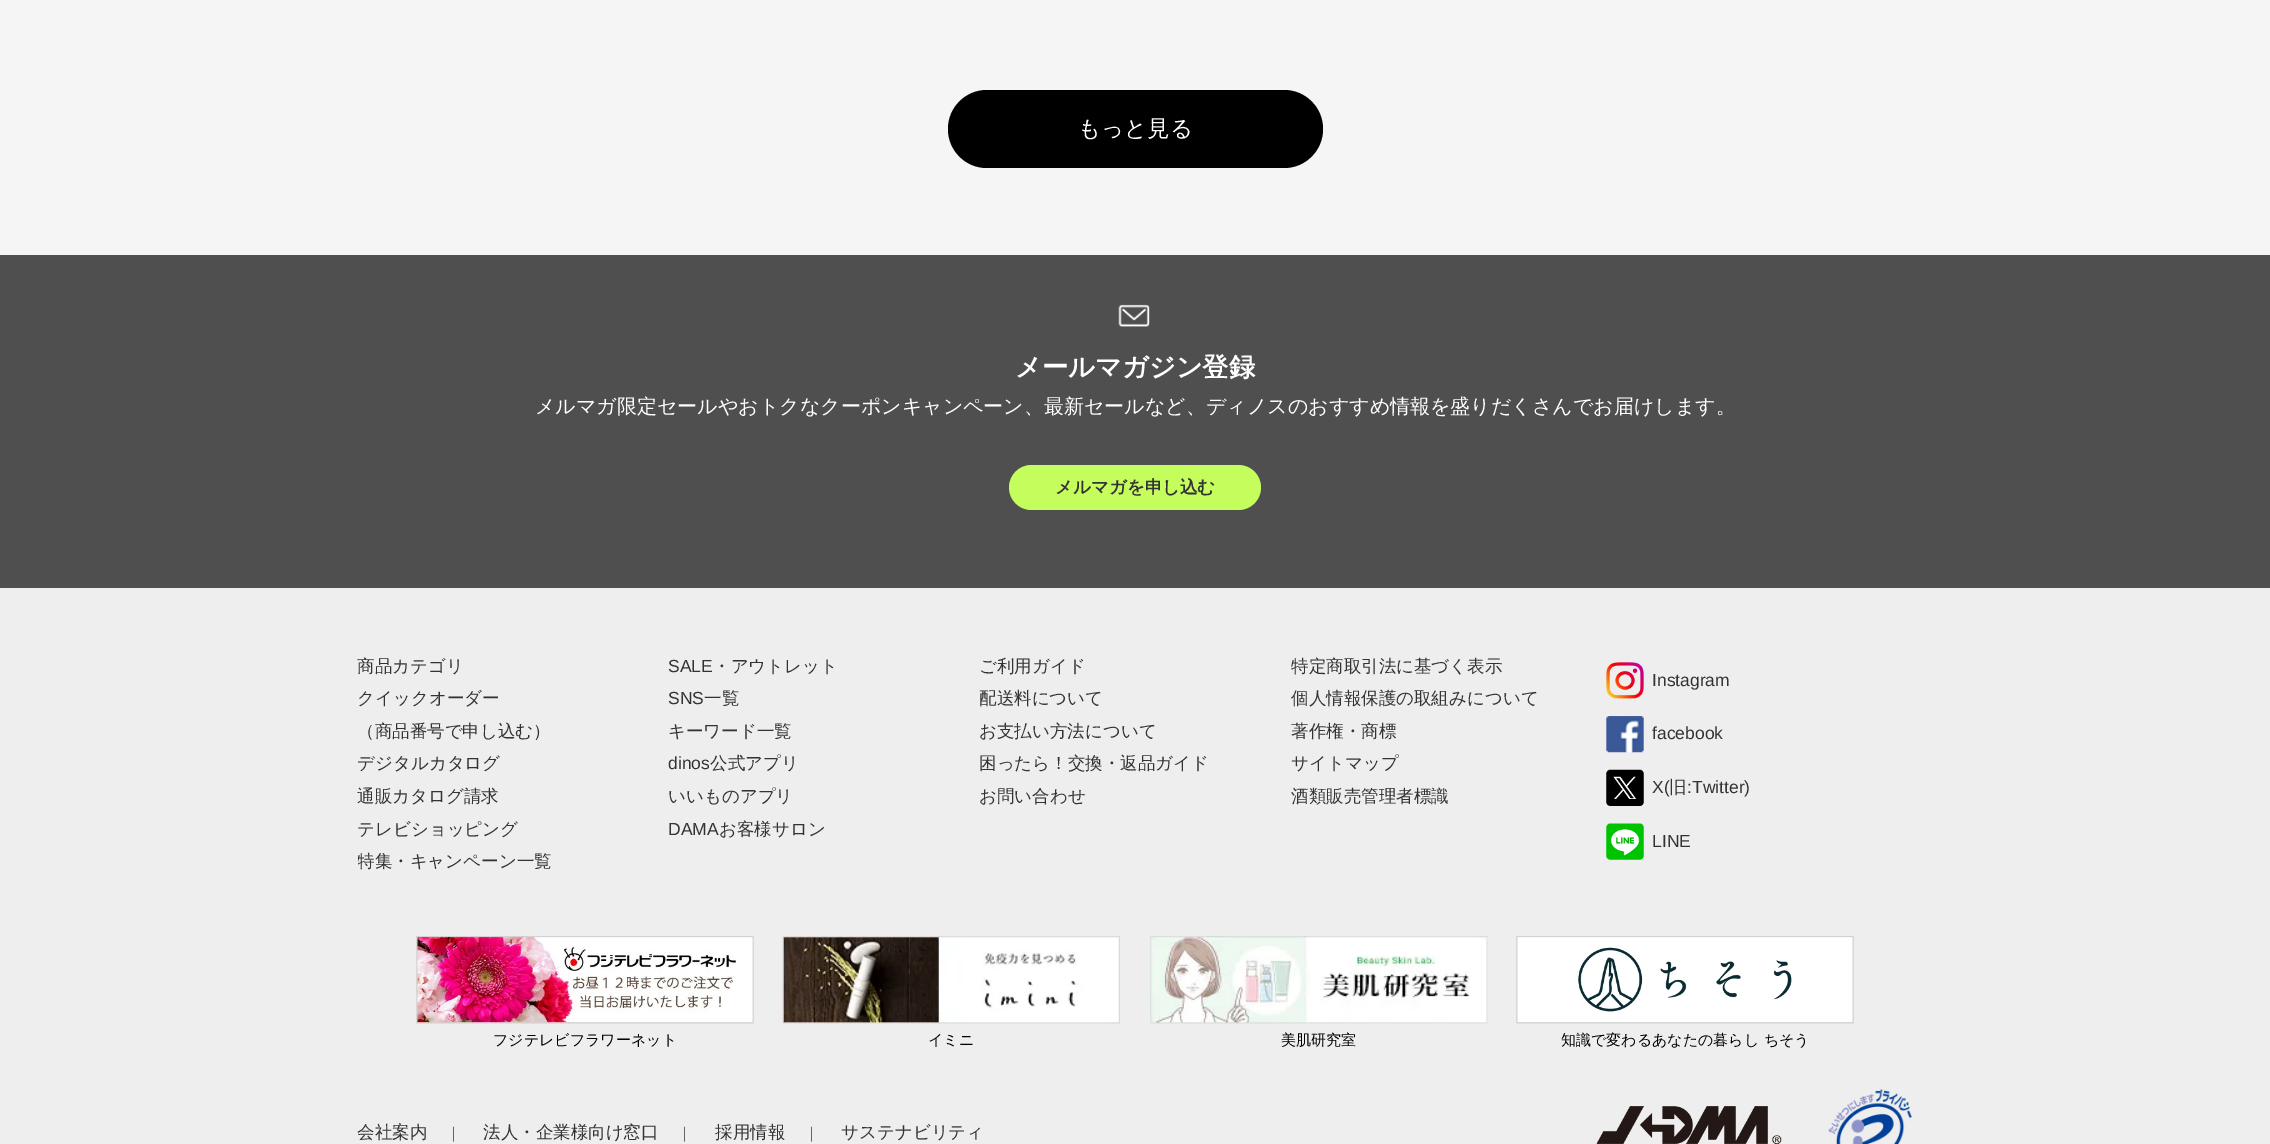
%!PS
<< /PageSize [2270 1144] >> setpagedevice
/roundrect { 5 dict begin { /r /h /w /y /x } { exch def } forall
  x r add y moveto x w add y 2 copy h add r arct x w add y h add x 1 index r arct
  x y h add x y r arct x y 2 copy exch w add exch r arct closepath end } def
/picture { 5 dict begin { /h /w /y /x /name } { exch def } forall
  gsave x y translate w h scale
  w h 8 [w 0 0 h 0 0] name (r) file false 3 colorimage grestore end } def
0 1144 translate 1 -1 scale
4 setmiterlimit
0.961 setgray
0 0 2270 1144 rectfill
0 setgray
948 90 375 78 39 roundrect fill
/WenQuanYiZenHei-Medium [22.5 0 0 -22.5 0 0] selectfont
1 setgray
1078 136 moveto (もっと見る) show
0.31 setgray
0 255 2270 333 rectfill
(img1.rgb) 1118 304 32 23 picture
/WenQuanYiZenHei-Bold [26.25 0 0 -26.25 0 0] selectfont
1 setgray
1015 376 moveto (メールマガジン登録) show
/WenQuanYiZenHei-Medium [20 0 0 -20 0 0] selectfont
535 413 moveto (メルマガ限定セールやおトクなクーポンキャンペーン、最新セールなど、ディノスのおすすめ情報を盛りだくさんでお届けします。) show
0.773 0.992 0.365 setrgbcolor
1009 465 252 45 22.5 roundrect fill
/WenQuanYiZenHei-Bold [17.5 0 0 -17.5 0 0] selectfont
0.2 setgray
1055 493 moveto (メルマガを申し込む) show
0.933 setgray
0 588 2270 556 rectfill
/WenQuanYiZenHei-Medium [17.5 0 0 -17.5 0 0] selectfont
0.2 setgray
357 672 moveto (商品カテゴリ) show
357 704 moveto (クイックオーダー) show
357 737 moveto (（商品番号で申し込む）) show
357 769 moveto (デジタルカタログ) show
357 802 moveto (通販カタログ請求) show
357 835 moveto (テレビショッピング) show
gsave
358 650 1556 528 rectclip
357 867 moveto (特集・キャンペーン一覧) show
grestore
/LiberationSans-Regular [17.5 0 0 -17.5 0 0] selectfont
668 672 moveto (SALE) show
/WenQuanYiZenHei-Medium [17.5 0 0 -17.5 0 0] selectfont
713 672 moveto (・アウトレット) show
/LiberationSans-Regular [17.5 0 0 -17.5 0 0] selectfont
668 704 moveto (SNS) show
/WenQuanYiZenHei-Medium [17.5 0 0 -17.5 0 0] selectfont
704 704 moveto (一覧) show
668 737 moveto (キーワード一覧) show
/LiberationSans-Regular [17.5 0 0 -17.5 0 0] selectfont
668 769 moveto (dinos) show
/WenQuanYiZenHei-Medium [17.5 0 0 -17.5 0 0] selectfont
710 769 moveto (公式アプリ) show
668 802 moveto (いいものアプリ) show
/LiberationSans-Regular [17.5 0 0 -17.5 0 0] selectfont
668 835 moveto (DAMA) show
/WenQuanYiZenHei-Medium [17.5 0 0 -17.5 0 0] selectfont
719 835 moveto (お客様サロン) show
979 672 moveto (ご利用ガイド) show
979 704 moveto (配送料について) show
979 737 moveto (お支払い方法について) show
979 769 moveto (困ったら！交換・返品ガイド) show
979 802 moveto (お問い合わせ) show
1291 672 moveto (特定商取引法に基づく表示) show
1291 704 moveto (個人情報保護の取組みについて) show
1291 737 moveto (著作権・商標) show
1291 769 moveto (サイトマップ) show
1291 802 moveto (酒類販売管理者標識) show
(img2.rgb) 1606 662 38 37 picture
/LiberationSans-Regular [17.5 0 0 -17.5 0 0] selectfont
1652 686 moveto (Instagram) show
(img3.rgb) 1606 716 38 37 picture
1652 739 moveto (facebook) show
(img4.rgb) 1606 769 38 37 picture
1652 793 moveto (X\() show
/WenQuanYiZenHei-Medium [17.5 0 0 -17.5 0 0] selectfont
1669 793 moveto (旧) show
/LiberationSans-Regular [17.5 0 0 -17.5 0 0] selectfont
1687 793 moveto (:Twitter\)) show
(img5.rgb) 1606 823 38 37 picture
1652 847 moveto (LINE) show
(img6.rgb) 416 936 338 88 picture
/WenQuanYiZenHei-Medium [15 0 0 -15 0 0] selectfont
0 setgray
493 1045 moveto (フジテレビフラワーネット) show
(img7.rgb) 782 936 338 88 picture
928 1045 moveto (イミニ) show
(img8.rgb) 1150 936 338 88 picture
1281 1045 moveto (美肌研究室) show
(img9.rgb) 1516 936 338 88 picture
1561 1045 moveto (知識で変わるあなたの暮らし ちそう) show
/WenQuanYiZenHei-Medium [17.5 0 0 -17.5 0 0] selectfont
0.2 setgray
357 1138 moveto (会社案内) show
/WenQuanYiZenHei-Medium [15 0 0 -15 0 0] selectfont
0.4 setgray
446 1138 moveto (｜) show
/WenQuanYiZenHei-Medium [17.5 0 0 -17.5 0 0] selectfont
0.2 setgray
483 1138 moveto (法人・企業様向け窓口) show
/WenQuanYiZenHei-Medium [15 0 0 -15 0 0] selectfont
0.4 setgray
677 1138 moveto (｜) show
/WenQuanYiZenHei-Medium [17.5 0 0 -17.5 0 0] selectfont
0.2 setgray
715 1138 moveto (採用情報) show
/WenQuanYiZenHei-Medium [15 0 0 -15 0 0] selectfont
0.4 setgray
804 1138 moveto (｜) show
/WenQuanYiZenHei-Medium [17.5 0 0 -17.5 0 0] selectfont
0.2 setgray
841 1138 moveto (サステナビリティ) show
(img10.rgb) 1596 1106 186 38 picture
(img11.rgb) 1828 1089 84 55 picture
showpage
